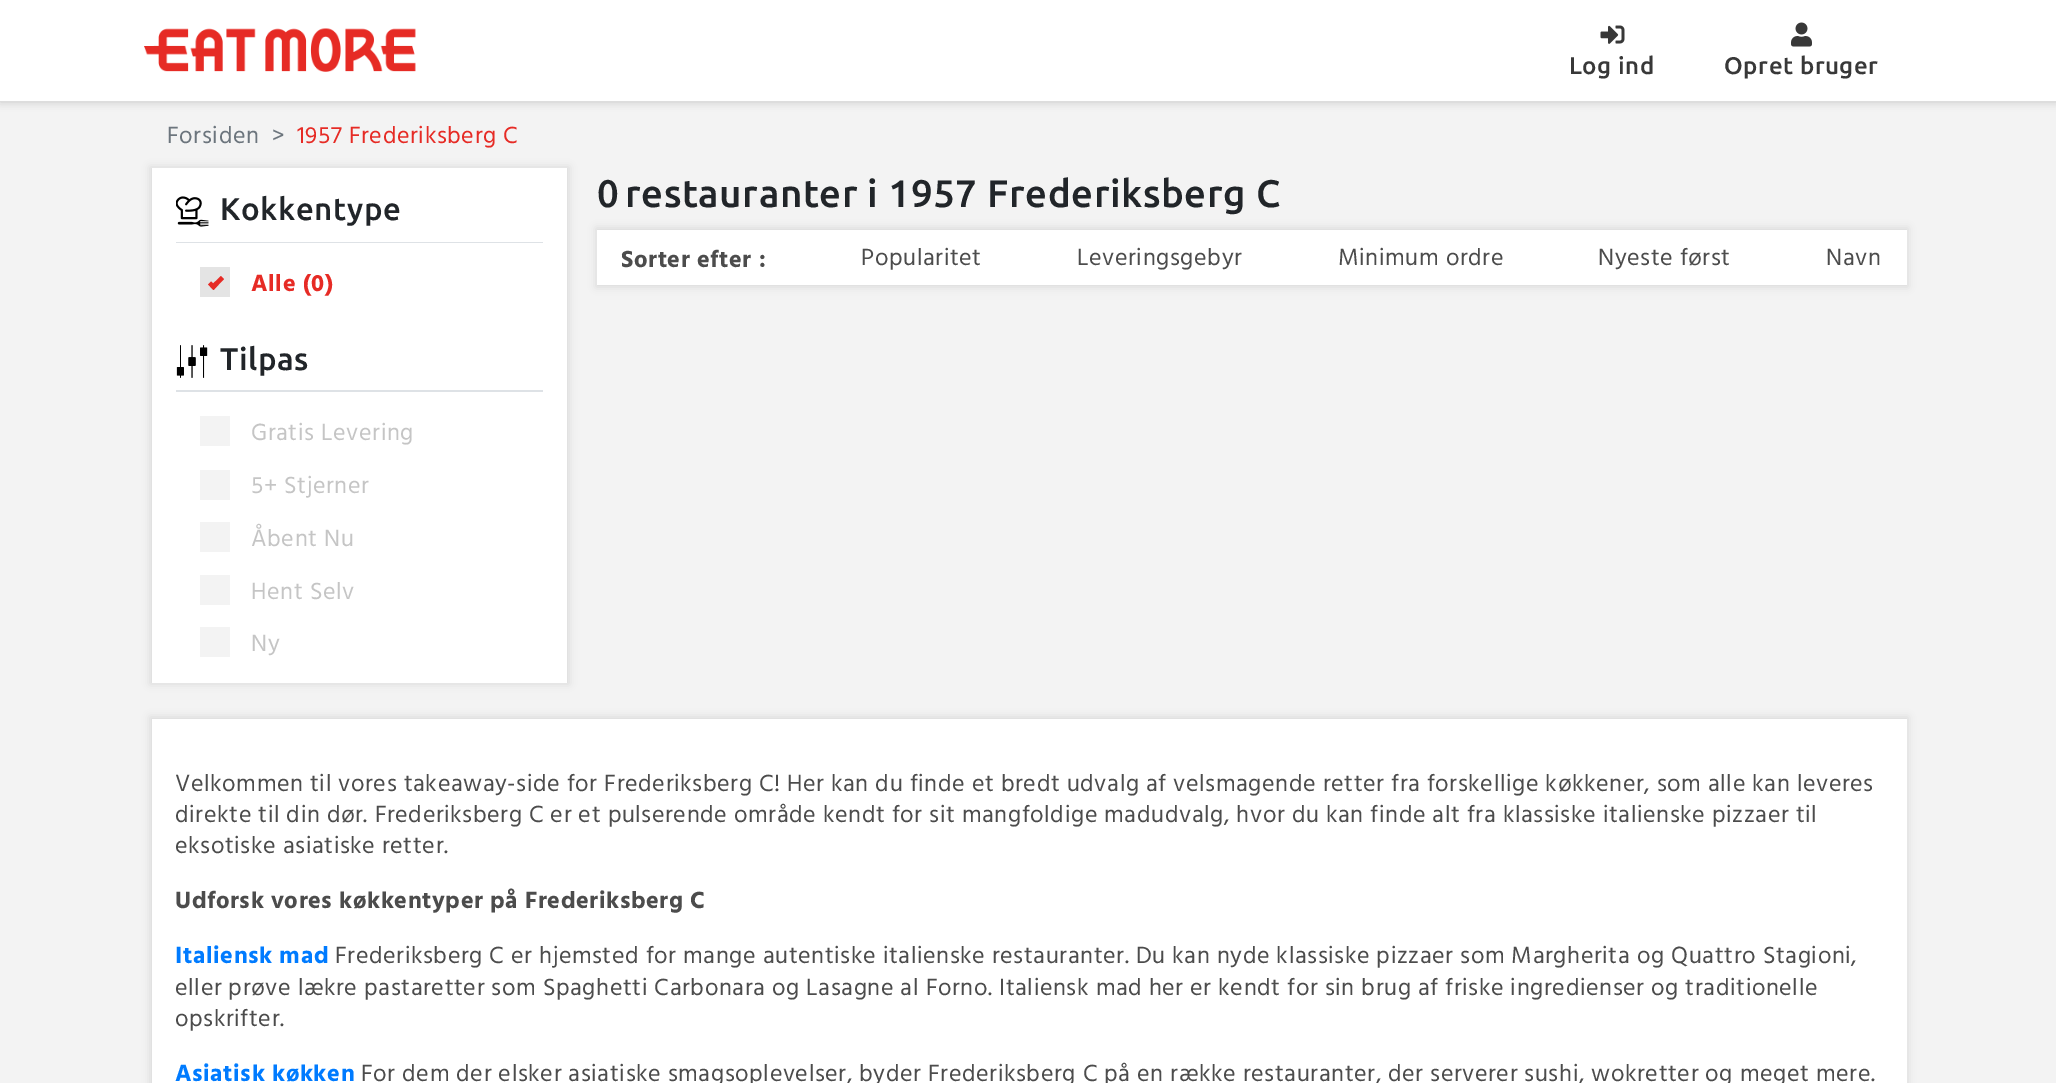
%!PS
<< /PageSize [2056 1083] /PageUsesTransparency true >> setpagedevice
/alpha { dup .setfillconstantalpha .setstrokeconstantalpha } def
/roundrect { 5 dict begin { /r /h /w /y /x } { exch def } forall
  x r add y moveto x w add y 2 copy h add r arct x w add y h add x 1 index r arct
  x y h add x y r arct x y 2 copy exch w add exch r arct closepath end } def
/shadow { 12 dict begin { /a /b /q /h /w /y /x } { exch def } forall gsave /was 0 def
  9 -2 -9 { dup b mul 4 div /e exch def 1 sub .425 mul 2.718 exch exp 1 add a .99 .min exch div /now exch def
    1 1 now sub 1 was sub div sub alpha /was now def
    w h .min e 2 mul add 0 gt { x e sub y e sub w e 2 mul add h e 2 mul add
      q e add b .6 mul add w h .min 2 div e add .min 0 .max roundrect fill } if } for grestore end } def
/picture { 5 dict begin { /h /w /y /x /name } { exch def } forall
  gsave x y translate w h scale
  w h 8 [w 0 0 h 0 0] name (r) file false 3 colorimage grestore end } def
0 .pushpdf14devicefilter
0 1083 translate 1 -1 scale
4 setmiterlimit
0.953 setgray
0 0 2056 1083 rectfill
0.78 setgray
0 2 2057 100 0 4.5 1 shadow
1 setgray
0 0 2056 101 rectfill
(img1.rgb) 144 28 272 44 picture
(img2.rgb) 1600 25 25 19 picture
/Ubuntu-Medium [24 0 0 -24 0 0] selectfont
0.22 setgray
1569 74 moveto 0.6 0 (Log ind) ashow
(img3.rgb) 1791 22 21 25 picture
1724 74 moveto 0.6 0 (Opret bruger) ashow
/HindVadodara-Regular [24 0 0 -24 0 0] selectfont
0.424 0.459 0.49 setrgbcolor
167 143 moveto 0.6 0 (Forsiden) ashow
272 143 moveto 0.6 0 (>) ashow
0.902 0.169 0.145 setrgbcolor
297 143 moveto 0.6 0 (1957 Frederiksberg C) ashow
0.847 setgray
150 167 419 517 0 4 1 shadow
1 setgray
152 168 415 515 rectfill
0.871 0.886 0.902 setrgbcolor
176 242 367 1 rectfill
(img4.rgb) 176 196 33 31 picture
/Ubuntu-Medium [31.25 0 0 -31.25 0 0] selectfont
0.129 0.145 0.161 setrgbcolor
220 220 moveto 0.6 0 (Kokkentype) ashow
0.894 setgray
200 267 30 30 rectfill
0.902 0.169 0.145 setrgbcolor
newpath 221 276 moveto 224 279 lineto 213.5 290 lineto 210 286.5 lineto closepath fill
newpath 211 281.5 moveto 216.5 286.5 lineto 213.5 290 lineto 208 284.5 lineto closepath fill
/HindVadodara-Bold [24 0 0 -24 0 0] selectfont
251 291 moveto 0.6 0 (Alle \(0\)) ashow
0.871 0.886 0.902 setrgbcolor
176 390 367 2 rectfill
(img5.rgb) 176 345 32 33 picture
/Ubuntu-Medium [31.25 0 0 -31.25 0 0] selectfont
0.129 0.145 0.161 setrgbcolor
220 370 moveto 0.6 0 (Tilpas) ashow
0.953 setgray
200 416 30 30 rectfill
/HindVadodara-Regular [24 0 0 -24 0 0] selectfont
0.773 setgray
251 440 moveto 0.6 0 (Gratis Levering) ashow
0.953 setgray
200 470 30 30 rectfill
0.773 setgray
251 493 moveto 0.6 0 (5+ Stjerner) ashow
0.953 setgray
200 522 30 30 rectfill
0.773 setgray
251 546 moveto 0.6 0 (Åbent Nu) ashow
0.953 setgray
200 575 30 30 rectfill
0.773 setgray
251 599 moveto 0.6 0 (Hent Selv) ashow
0.953 setgray
200 627 30 30 rectfill
0.773 setgray
251 651 moveto 0.6 0 (Ny) ashow
/Ubuntu-Medium [38.4 0 0 -38.4 0 0] selectfont
0.129 0.145 0.161 setrgbcolor
597 207 moveto 0.6 0 (0) ashow
625 207 moveto 0.6 0 (restauranter i 1957 Frederiksberg C) ashow
0.847 setgray
596 228 1312 59 0 4 1 shadow
1 setgray
597 230 1310 55 rectfill
/HindVadodara-Bold [24 0 0 -24 0 0] selectfont
0.298 setgray
621 267 moveto 0.6 0 (Sorter efter :) ashow
/HindVadodara-Regular [24 0 0 -24 0 0] selectfont
861 265 moveto 0.6 0 (Popularitet) ashow
1077 265 moveto 0.6 0 (Leveringsgebyr) ashow
1338 265 moveto 0.6 0 (Minimum ordre) ashow
1598 265 moveto 0.6 0 (Nyeste først) ashow
1826 265 moveto 0.6 0 (Navn) ashow
0.847 setgray
150 717 1758 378 0 4 1 shadow
1 setgray
152 719 1755 364 rectfill
0.298 setgray
175 791 moveto 0.6 0 (Velkommen til vores takeaway-side for Frederiksberg C! Her kan du finde et bredt udvalg af velsmagende retter fra forskellige køkkener, som alle kan leveres) ashow
175 822 moveto 0.6 0 (direkte til din dør. Frederiksberg C er et pulserende område kendt for sit mangfoldige madudvalg, hvor du kan finde alt fra klassiske italienske pizzaer til) ashow
175 853 moveto 0.6 0 (eksotiske asiatiske retter.) ashow
/HindVadodara-Bold [24 0 0 -24 0 0] selectfont
175 908 moveto 0.6 0 (Udforsk vores køkkentyper på Frederiksberg C) ashow
0 0.482 1 setrgbcolor
175 963 moveto 0.6 0 (Italiensk mad) ashow
/HindVadodara-Regular [24 0 0 -24 0 0] selectfont
0.298 setgray
335 963 moveto 0.6 0 (Frederiksberg C er hjemsted for mange autentiske italienske restauranter. Du kan nyde klassiske pizzaer som Margherita og Quattro Stagioni,) ashow
175 995 moveto 0.6 0 (eller prøve lækre pastaretter som Spaghetti Carbonara og Lasagne al Forno. Italiensk mad her er kendt for sin brug af friske ingredienser og traditionelle) ashow
175 1026 moveto 0.6 0 (opskrifter.) ashow
/HindVadodara-Bold [24 0 0 -24 0 0] selectfont
0 0.482 1 setrgbcolor
175 1081 moveto 0.6 0 (Asiatisk køkken) ashow
/HindVadodara-Regular [24 0 0 -24 0 0] selectfont
0.298 setgray
361 1081 moveto 0.6 0 (For dem der elsker asiatiske smagsoplevelser, byder Frederiksberg C på en række restauranter, der serverer sushi, wokretter og meget mere.) ashow
.poppdf14devicefilter showpage
